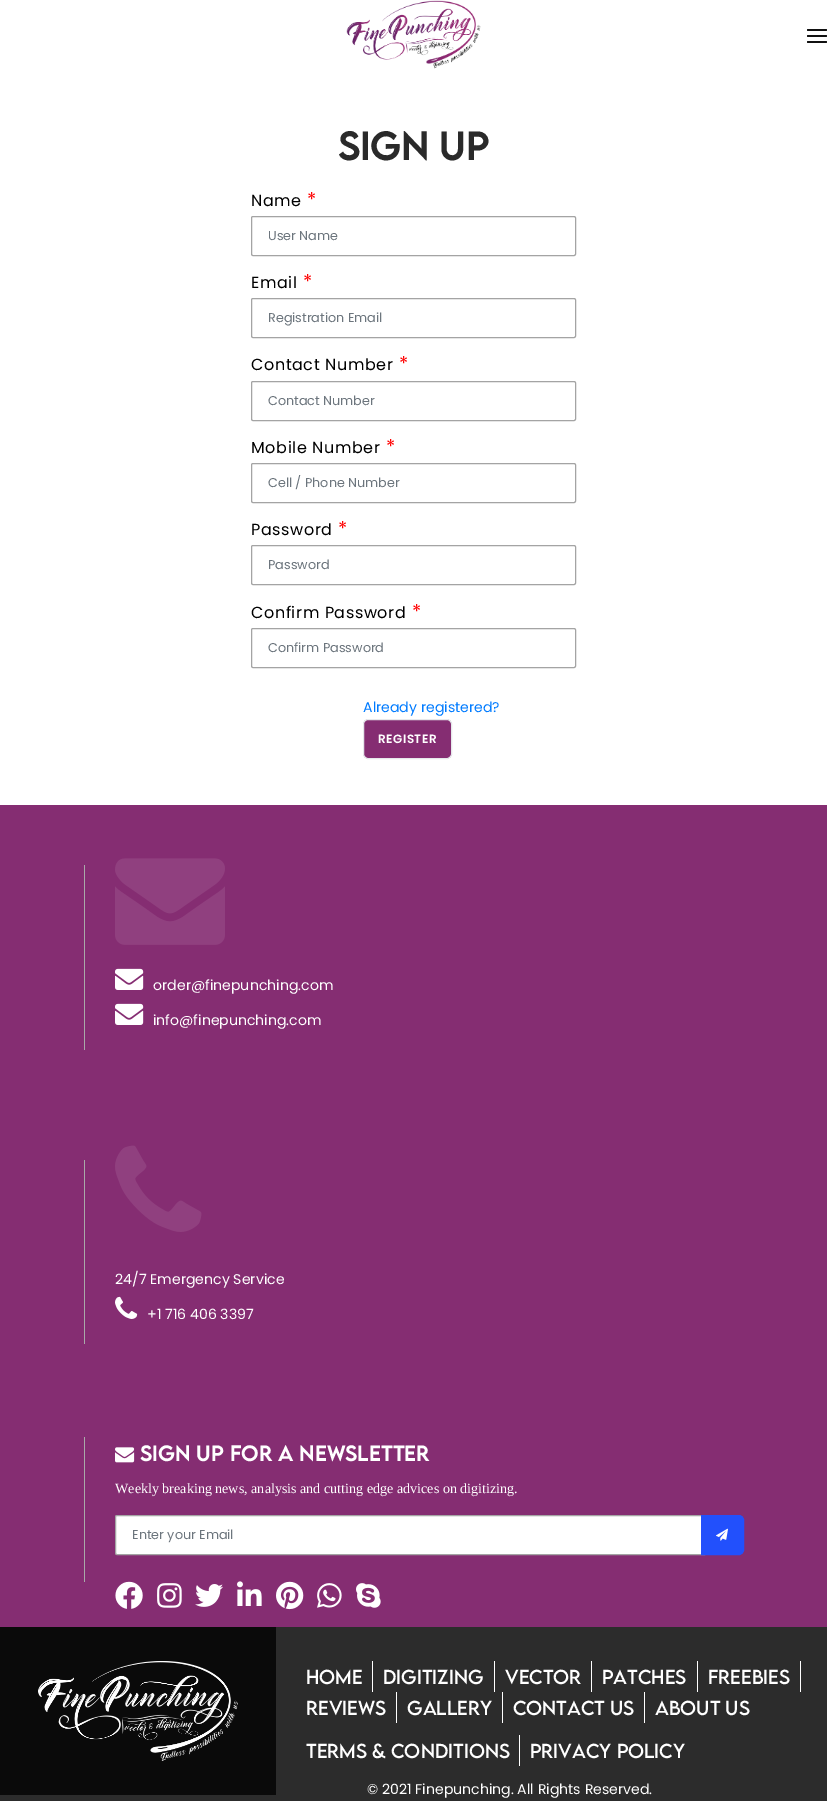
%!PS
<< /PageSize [827 1811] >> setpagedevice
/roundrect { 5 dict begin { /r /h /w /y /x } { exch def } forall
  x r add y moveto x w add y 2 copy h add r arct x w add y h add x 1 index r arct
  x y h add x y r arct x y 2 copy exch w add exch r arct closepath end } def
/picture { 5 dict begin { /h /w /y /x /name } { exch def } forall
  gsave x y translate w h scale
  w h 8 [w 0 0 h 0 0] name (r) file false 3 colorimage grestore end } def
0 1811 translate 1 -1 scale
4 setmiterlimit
1 setgray
0 0 827 1811 rectfill
(img1.rgb) 346 0 135 69 picture
0.067 setgray
807 35 20 2 1 roundrect fill
807 29 20 2 1 roundrect fill
807 41 20 2 1 roundrect fill
/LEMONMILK-Bold [35 0 0 -35 0 0] selectfont
0.165 setgray
338 160 moveto 0.5 0 (Sign Up) ashow
/Poppins-Regular [16 0 0 -16 0 0] selectfont
0 setgray
251 206 moveto 0.6 0 (Name) ashow
/Poppins-Regular [19 0 0 -19 0 0] selectfont
1 0 0 setrgbcolor
307 206 moveto 0.6 0 (*) ashow
0.643 setgray
251.5 216.5 324 39 1.5 roundrect stroke
/Poppins-Regular [12.75 0 0 -12.75 0 0] selectfont
0.424 0.459 0.49 setrgbcolor
268 240 moveto (User Name) show
/Poppins-Regular [16 0 0 -16 0 0] selectfont
0 setgray
251 288 moveto 0.6 0 (Email) ashow
/Poppins-Regular [19 0 0 -19 0 0] selectfont
1 0 0 setrgbcolor
303 288 moveto 0.6 0 (*) ashow
0.643 setgray
251.5 298.5 324 39 1.5 roundrect stroke
/Poppins-Regular [12.75 0 0 -12.75 0 0] selectfont
0.424 0.459 0.49 setrgbcolor
268 322 moveto (Registration Email) show
/Poppins-Regular [16 0 0 -16 0 0] selectfont
0 setgray
251 370 moveto 0.6 0 (Contact Number) ashow
/Poppins-Regular [19 0 0 -19 0 0] selectfont
1 0 0 setrgbcolor
399 370 moveto 0.6 0 (*) ashow
0.643 setgray
251.5 381.5 324 39 1.5 roundrect stroke
/Poppins-Regular [12.75 0 0 -12.75 0 0] selectfont
0.424 0.459 0.49 setrgbcolor
268 405 moveto (Contact Number) show
/Poppins-Regular [16 0 0 -16 0 0] selectfont
0 setgray
251 453 moveto 0.6 0 (Mobile Number) ashow
/Poppins-Regular [19 0 0 -19 0 0] selectfont
1 0 0 setrgbcolor
386 453 moveto 0.6 0 (*) ashow
0.643 setgray
251.5 463.5 324 39 1.5 roundrect stroke
/Poppins-Regular [12.75 0 0 -12.75 0 0] selectfont
0.424 0.459 0.49 setrgbcolor
268 487 moveto (Cell / Phone Number) show
/Poppins-Regular [16 0 0 -16 0 0] selectfont
0 setgray
251 535 moveto 0.6 0 (Password) ashow
/Poppins-Regular [19 0 0 -19 0 0] selectfont
1 0 0 setrgbcolor
338 535 moveto 0.6 0 (*) ashow
0.643 setgray
251.5 545.5 324 39 1.5 roundrect stroke
/Poppins-Regular [12.75 0 0 -12.75 0 0] selectfont
0.424 0.459 0.49 setrgbcolor
268 569 moveto (Password) show
/Poppins-Regular [16 0 0 -16 0 0] selectfont
0 setgray
251 618 moveto 0.6 0 (Confirm Password) ashow
/Poppins-Regular [19 0 0 -19 0 0] selectfont
1 0 0 setrgbcolor
412 618 moveto 0.6 0 (*) ashow
0.643 setgray
251.5 628.5 324 39 1.5 roundrect stroke
/Poppins-Regular [12.75 0 0 -12.75 0 0] selectfont
0.424 0.459 0.49 setrgbcolor
268 652 moveto (Confirm Password) show
/Poppins-Regular [14.1 0 0 -14.1 0 0] selectfont
0 0.482 1 setrgbcolor
363 712 moveto (Already registered?) show
0.522 0.176 0.447 setrgbcolor
363.5 719.5 88 39 4.5 roundrect gsave fill grestore
0.902 0.91 0.922 setrgbcolor
stroke
/Poppins-SemiBold [12 0 0 -12 0 0] selectfont
1 setgray
378 743 moveto 0.5 0 (REGISTER) ashow
0.522 0.176 0.447 setrgbcolor
0 805 827 822 rectfill
0.663 setgray
84 865 1 185 rectfill
(img2.rgb) 115 858 110 87 picture
(img3.rgb) 115 968 29 22 picture
/Poppins-Regular [14.1 0 0 -14.1 0 0] selectfont
1 setgray
153 990 moveto (order@finepunching.com) show
(img3.rgb) 115 1003 29 22 picture
153 1025 moveto (info@finepunching.com) show
0.663 setgray
84 1160 1 184 rectfill
(img4.rgb) 115 1145 87 87 picture
1 setgray
115 1284 moveto (24/7 Emergency Service) show
(img5.rgb) 115 1296 23 23 picture
147 1319 moveto (+1 716 406 3397) show
0.663 setgray
84 1437 1 145 rectfill
(img6.rgb) 115 1447 20 16 picture
/LEMONMILK-Bold [19.1 0 0 -19.1 0 0] selectfont
1 setgray
140 1461 moveto 0.5 0 (Sign Up For a Newsletter) ashow
/LiberationSerif-Regular [14.1 0 0 -14.1 0 0] selectfont
115 1493 moveto (Weekly breaking news, analysis and cutting edge advices on digitizing.) show
newpath 117 1515.5 moveto 704.5 1515.5 lineto 704.5 1554.5 lineto 117 1554.5 lineto 116 1554.5 115.5 1554 115.5 1553 curveto 115.5 1517 lineto 115.5 1516 116 1515.5 117 1515.5 curveto closepath gsave fill grestore
0.643 setgray
stroke
/Poppins-Regular [12.75 0 0 -12.75 0 0] selectfont
0.424 0.459 0.49 setrgbcolor
132 1539 moveto (Enter your Email) show
0.133 0.314 0.988 setrgbcolor
newpath 701.5 1515.5 moveto 739 1515.5 lineto 741.5 1515.5 743.5 1517.5 743.5 1520 curveto 743.5 1550 lineto 743.5 1552.5 741.5 1554.5 739 1554.5 curveto 701.5 1554.5 lineto closepath gsave fill grestore
stroke
(img7.rgb) 716 1528 12 13 picture
(img8.rgb) 115 1581 28 28 picture
(img9.rgb) 157 1583 25 25 picture
(img10.rgb) 195 1584 28 23 picture
(img11.rgb) 237 1581 25 25 picture
(img12.rgb) 276 1581 28 29 picture
(img13.rgb) 317 1583 25 25 picture
(img14.rgb) 356 1583 25 25 picture
0.173 setgray
0 1627 827 174 rectfill
0.039 setgray
0 1627 276 168 rectfill
(img15.rgb) 38 1661 200 100 picture
1 setgray
372 1661 1 31 rectfill
/LEMONMILK-Regular [18 0 0 -18 0 0] selectfont
306 1684 moveto (HOME) show
494 1661 1 31 rectfill
383 1684 moveto (DIGITIZING) show
591 1661 1 31 rectfill
505 1684 moveto (VECTOR) show
697 1661 1 31 rectfill
602 1684 moveto (PATCHES) show
800 1661 1 31 rectfill
708 1684 moveto (FREEBIES) show
396 1692 1 31 rectfill
306 1715 moveto (REVIEWS) show
502 1692 1 31 rectfill
407 1715 moveto (GALLERY) show
644 1692 1 31 rectfill
513 1715 moveto (CONTACT US) show
655 1715 moveto (ABOUT US) show
519 1735 1 31 rectfill
306 1758 moveto (TERMS & CONDITIONS) show
530 1758 moveto (PRIVACY POLICY) show
/Poppins-Regular [14.1 0 0 -14.1 0 0] selectfont
367 1794 moveto (© 2021 Finepunching. All Rights Reserved.) show
showpage
